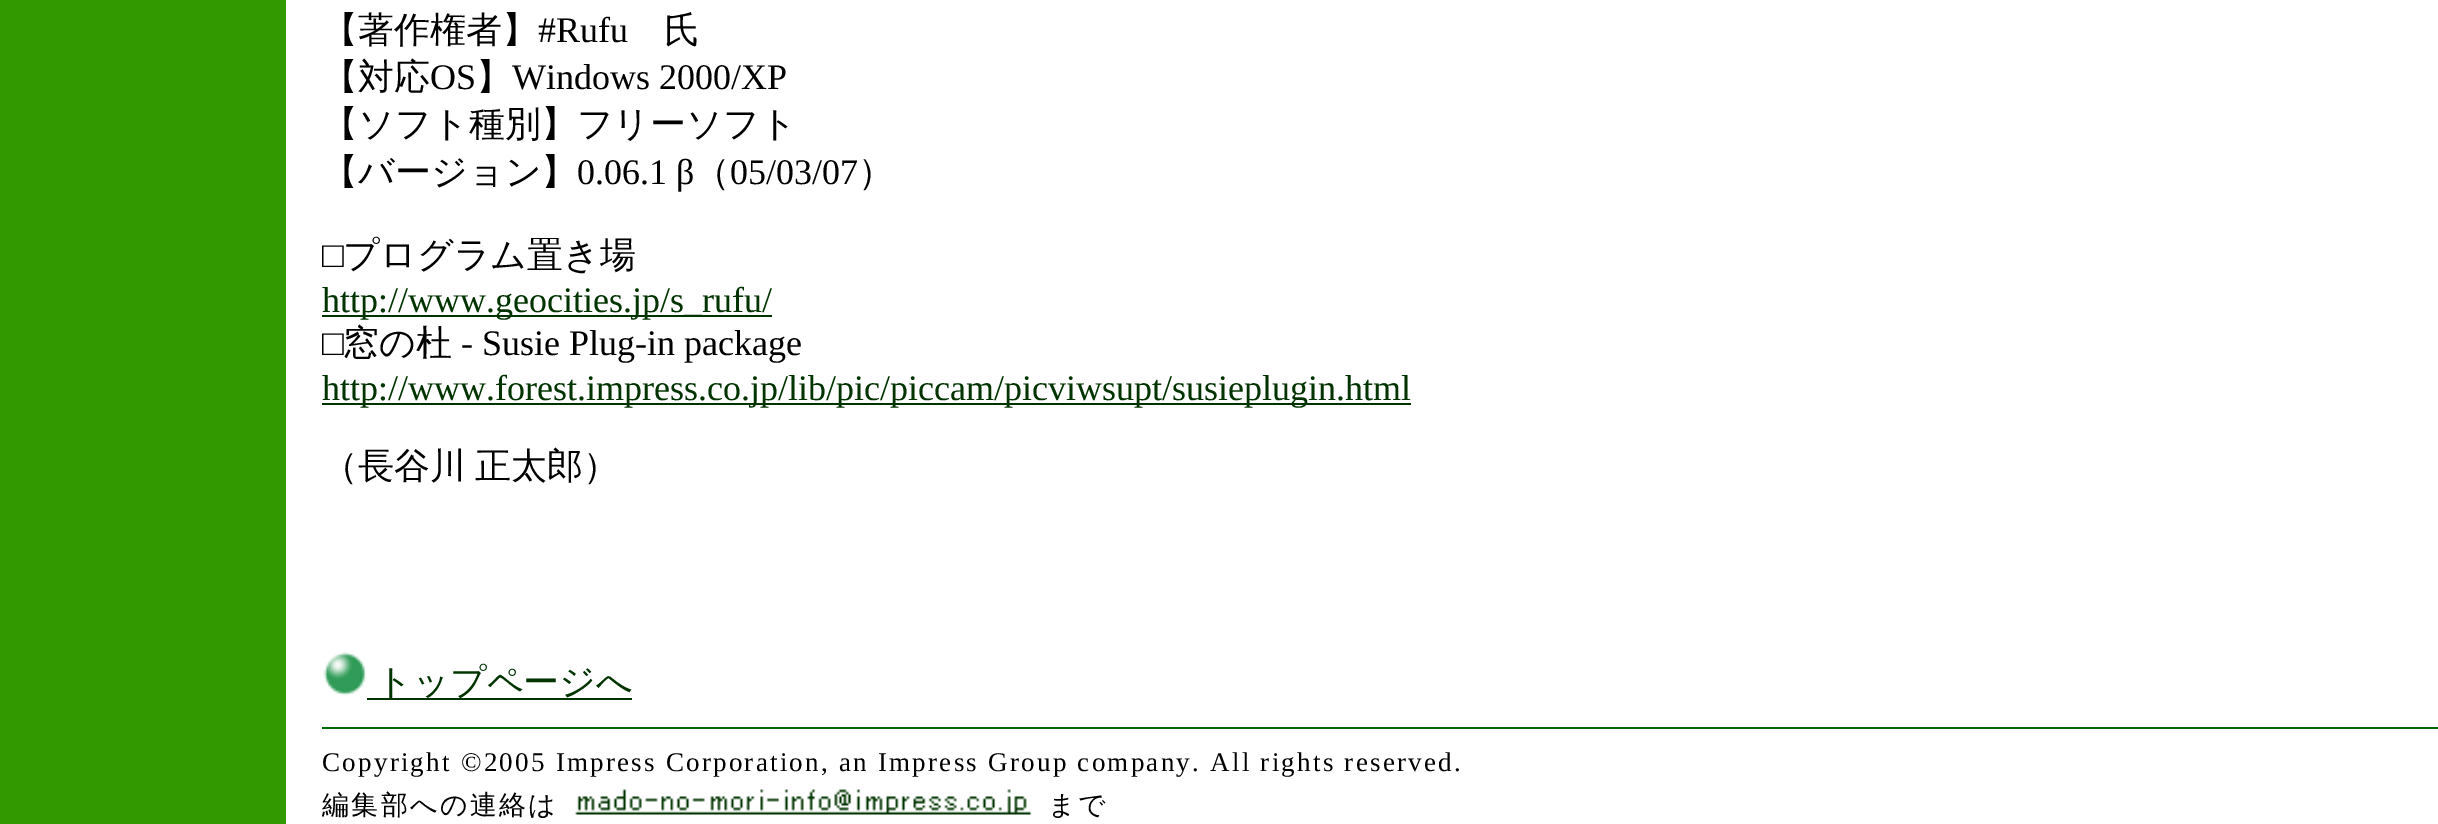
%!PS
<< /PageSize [2438 824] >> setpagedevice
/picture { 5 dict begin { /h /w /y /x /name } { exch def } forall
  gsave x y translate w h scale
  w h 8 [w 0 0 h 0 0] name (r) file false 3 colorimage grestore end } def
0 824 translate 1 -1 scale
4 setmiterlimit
1 setgray
0 0 2438 824 rectfill
0.2 0.6 0 setrgbcolor
0 0 286 824 rectfill
/WenQuanYiZenHei-Medium [36 0 0 -36 0 0] selectfont
0 setgray
322 42 moveto (【著作権者】) show
/LiberationSerif-Regular [36 0 0 -36 0 0] selectfont
538 42 moveto (#Rufu) show
/WenQuanYiZenHei-Medium [36 0 0 -36 0 0] selectfont
664 42 moveto (氏) show
322 89 moveto (【対応) show
/LiberationSerif-Regular [36 0 0 -36 0 0] selectfont
430 89 moveto (OS) show
/WenQuanYiZenHei-Medium [36 0 0 -36 0 0] selectfont
476 89 moveto (】) show
/LiberationSerif-Regular [36 0 0 -36 0 0] selectfont
512 89 moveto (Windows 2000/XP) show
/WenQuanYiZenHei-Medium [36 0 0 -36 0 0] selectfont
322 136 moveto (【ソフト種別】フリーソフト) show
322 184 moveto (【バージョン】) show
/LiberationSerif-Regular [36 0 0 -36 0 0] selectfont
577 184 moveto (0.06.1 β) show
/WenQuanYiZenHei-Medium [36 0 0 -36 0 0] selectfont
694 184 moveto (（) show
/LiberationSerif-Regular [36 0 0 -36 0 0] selectfont
730 184 moveto (05/03/07) show
/WenQuanYiZenHei-Medium [36 0 0 -36 0 0] selectfont
858 184 moveto (）) show
/LiberationSerif-Regular [36 0 0 -36 0 0] selectfont
322 267 moveto (□) show
/WenQuanYiZenHei-Medium [36 0 0 -36 0 0] selectfont
343 267 moveto (プログラム置き場) show
0 0.2 0 setrgbcolor
322 315 450 2 rectfill
/LiberationSerif-Regular [36 0 0 -36 0 0] selectfont
322 312 moveto (http://www.geocities.jp/s_rufu/) show
0 setgray
322 355 moveto (□) show
/WenQuanYiZenHei-Medium [36 0 0 -36 0 0] selectfont
343 355 moveto (窓の杜) show
/LiberationSerif-Regular [36 0 0 -36 0 0] selectfont
461 355 moveto (- Susie Plug-in package) show
0 0.2 0 setrgbcolor
322 403 1089 2 rectfill
322 400 moveto (http://www.forest.impress.co.jp/lib/pic/piccam/picviwsupt/susieplugin.html) show
/WenQuanYiZenHei-Medium [36 0 0 -36 0 0] selectfont
0 setgray
322 478 moveto -2 0 32 (（長谷川 正太郎）) widthshow
(img1.rgb) 323 652 44 44 picture
0 0.2 0 setrgbcolor
367 698 265 2 rectfill
376 694 moveto (トップページへ) show
0 0.4 0 setrgbcolor
322 727 2116 2 rectfill
/LiberationSerif-Regular [27 0 0 -27 0 0] selectfont
0 setgray
322 771 moveto 2.25 0 (Copyright ©2005 Impress Corporation, an Impress Group company. All rights reserved.) ashow
/WenQuanYiZenHei-Medium [27 0 0 -27 0 0] selectfont
322 814 moveto 2.25 0 (編集部への連絡は) ashow
(img2.rgb) 575 789 457 26 picture
1048 814 moveto 2.25 0 (まで) ashow
showpage
